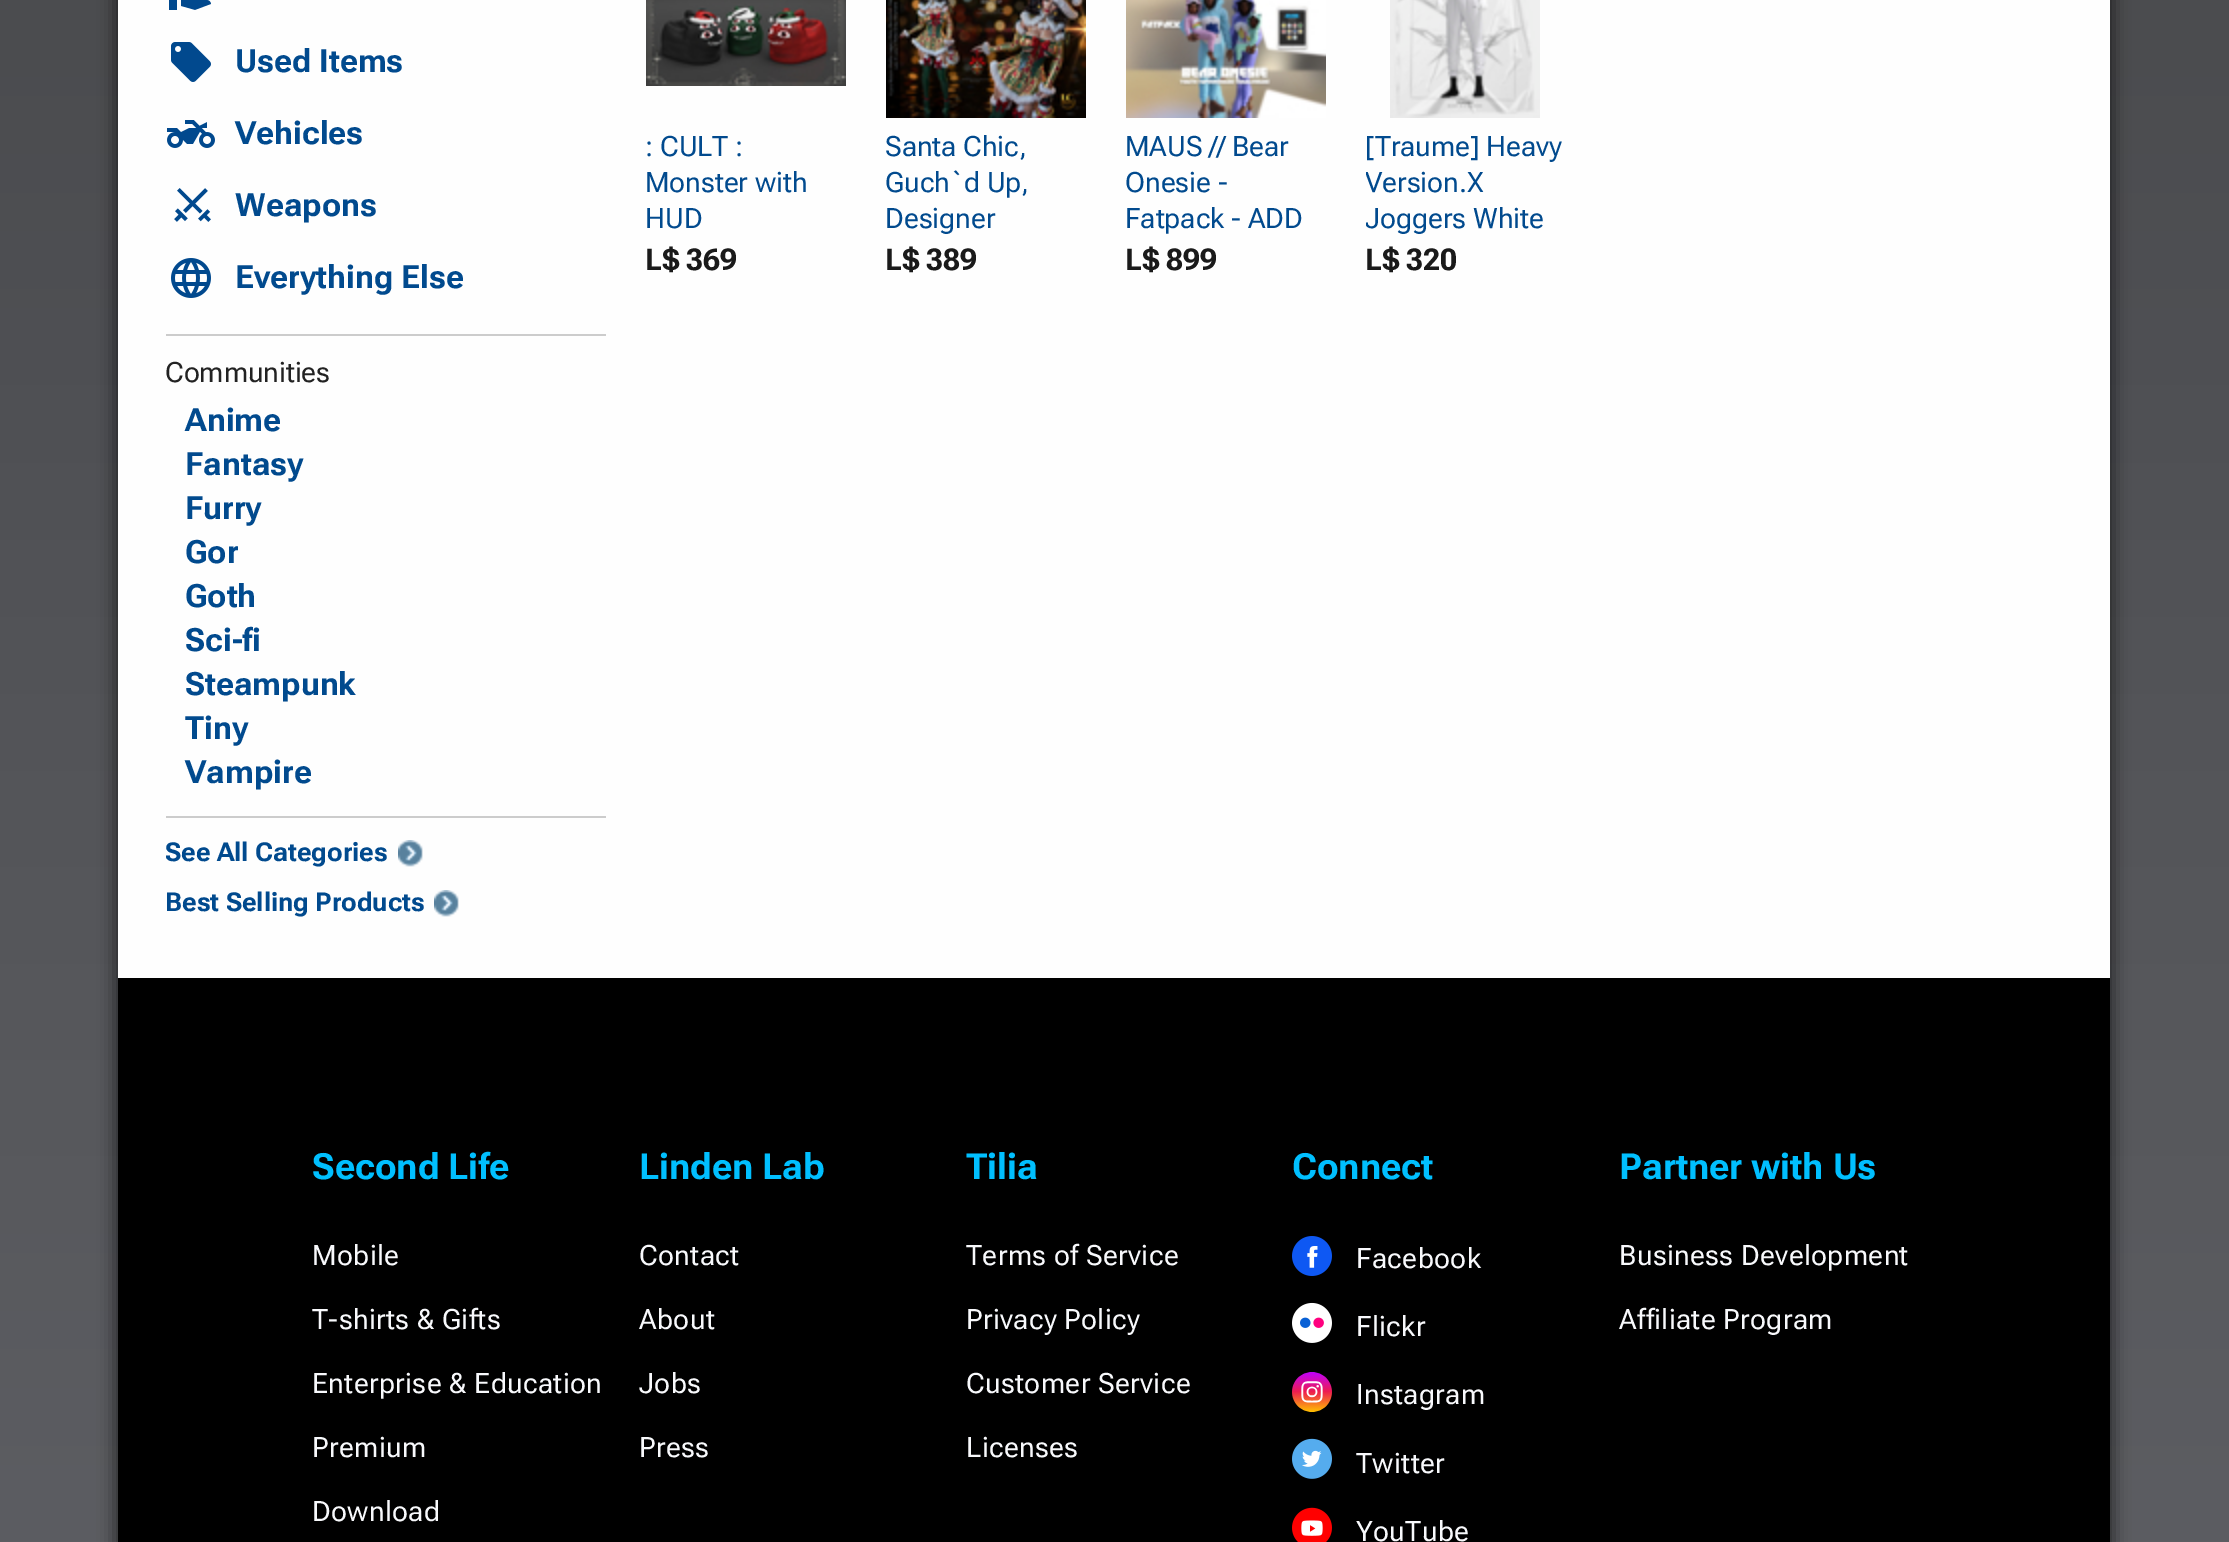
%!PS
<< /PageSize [2229 1542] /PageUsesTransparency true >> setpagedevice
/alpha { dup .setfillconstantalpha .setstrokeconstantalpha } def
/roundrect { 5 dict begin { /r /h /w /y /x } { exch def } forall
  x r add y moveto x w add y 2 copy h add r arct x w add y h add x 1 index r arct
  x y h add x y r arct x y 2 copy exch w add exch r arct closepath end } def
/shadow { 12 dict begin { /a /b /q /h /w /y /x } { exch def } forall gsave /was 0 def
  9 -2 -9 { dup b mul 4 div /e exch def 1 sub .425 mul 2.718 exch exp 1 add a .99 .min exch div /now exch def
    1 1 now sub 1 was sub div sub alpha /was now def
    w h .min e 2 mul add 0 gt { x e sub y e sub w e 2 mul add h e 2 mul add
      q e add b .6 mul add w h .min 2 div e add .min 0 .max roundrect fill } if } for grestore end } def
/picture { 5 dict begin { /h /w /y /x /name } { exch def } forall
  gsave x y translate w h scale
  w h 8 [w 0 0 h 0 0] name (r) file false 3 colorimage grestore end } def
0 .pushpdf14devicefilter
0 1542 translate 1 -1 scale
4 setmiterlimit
1 setgray
0 0 2229 1542 rectfill
gsave newpath 0 0 moveto 2229 0 lineto 2229 1542 lineto 0 1542 lineto closepath clip newpath
<< /ShadingType 2 /ColorSpace /DeviceRGB /Coords [1115 -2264 1115 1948] /Extend [true true] /Function << /FunctionType 2 /Domain [0 1] /C0 [0.192 0.196 0.204] /C1 [0.38 0.384 0.404] /N 1 >> >> shfill grestore
0 setgray
114 -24 2000 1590 0 8 0.5 shadow
0.996 setgray
118 0 1992 978 rectfill
0.8 setgray
166 334 440 2 rectfill
(img1.rgb) 169 0 42 10 picture
(img2.rgb) 171 42 40 40 picture
/RobotoFlex-Bold [32 0 0 -32 0 0] selectfont
0.004 0.29 0.557 setrgbcolor
235 72 moveto (Used Items) show
(img3.rgb) 167 120 48 28 picture
235 144 moveto (Vehicles) show
(img4.rgb) 174 188 37 34 picture
235 216 moveto (Weapons) show
(img5.rgb) 171 258 40 40 picture
235 288 moveto (Everything Else) show
/RobotoFlex-Regular [28 0 0 -28 0 0] selectfont
0.133 setgray
165 382 moveto (Communities) show
0.8 setgray
166 816 440 2 rectfill
/RobotoFlex-Bold [32 0 0 -32 0 0] selectfont
0.004 0.29 0.557 setrgbcolor
185 431 moveto (Anime) show
185 475 moveto (Fantasy) show
185 519 moveto (Furry) show
185 563 moveto (Gor) show
185 607 moveto (Goth) show
185 651 moveto (Sci-fi) show
185 695 moveto (Steampunk) show
185 739 moveto (Tiny) show
185 783 moveto (Vampire) show
/RobotoFlex-Bold [26 0 0 -26 0 0] selectfont
165 861 moveto (See All Categories) show
(img6.rgb) 398 840 25 27 picture
165 911 moveto (Best Selling Products) show
(img6.rgb) 434 890 25 27 picture
(img7.rgb) 646 0 200 86 picture
/RobotoFlex-Regular [28 0 0 -28 0 0] selectfont
645 156 moveto (: CULT :) show
645 192 moveto (Monster with) show
645 228 moveto (HUD) show
/RobotoFlex-Bold [30 0 0 -30 0 0] selectfont
0.102 setgray
645 270 moveto (L$ 369) show
(img8.rgb) 886 0 200 118 picture
/RobotoFlex-Regular [28 0 0 -28 0 0] selectfont
0.004 0.29 0.557 setrgbcolor
885 156 moveto (Santa Chic,) show
885 192 moveto (Guch`d Up,) show
885 228 moveto (Designer) show
/RobotoFlex-Bold [30 0 0 -30 0 0] selectfont
0.102 setgray
885 270 moveto (L$ 389) show
(img9.rgb) 1126 0 200 118 picture
/RobotoFlex-Regular [28 0 0 -28 0 0] selectfont
0.004 0.29 0.557 setrgbcolor
1125 156 moveto (MAUS // Bear) show
1125 192 moveto (Onesie -) show
1125 228 moveto (Fatpack - ADD) show
/RobotoFlex-Bold [30 0 0 -30 0 0] selectfont
0.102 setgray
1125 270 moveto (L$ 899) show
(img10.rgb) 1390 0 150 118 picture
/RobotoFlex-Regular [28 0 0 -28 0 0] selectfont
0.004 0.29 0.557 setrgbcolor
1365 156 moveto ([Traume] Heavy) show
gsave
1366 128 200 108 rectclip
1365 192 moveto (Version.X) show
1365 228 moveto (Joggers White) show
grestore
/RobotoFlex-Bold [30 0 0 -30 0 0] selectfont
0.102 setgray
1365 270 moveto (L$ 320) show
0 setgray
118 978 1992 564 rectfill
/RobotoFlex-Bold [36 0 0 -36 0 0] selectfont
0 0.749 1 setrgbcolor
312 1179 moveto (Second Life) show
/RobotoFlex-Regular [28 0 0 -28 0 0] selectfont
0.973 0.976 0.988 setrgbcolor
312 1265 moveto 0.4 0 (Mobile) ashow
312 1329 moveto 0.4 0 (T-shirts & Gifts) ashow
312 1393 moveto 0.4 0 (Enterprise & Education) ashow
312 1457 moveto 0.4 0 (Premium) ashow
312 1521 moveto 0.4 0 (Download) ashow
/RobotoFlex-Bold [36 0 0 -36 0 0] selectfont
0 0.749 1 setrgbcolor
639 1179 moveto (Linden Lab) show
/RobotoFlex-Regular [28 0 0 -28 0 0] selectfont
0.973 0.976 0.988 setrgbcolor
639 1265 moveto 0.4 0 (Contact) ashow
639 1329 moveto 0.4 0 (About) ashow
639 1393 moveto 0.4 0 (Jobs) ashow
639 1457 moveto 0.4 0 (Press) ashow
/RobotoFlex-Bold [36 0 0 -36 0 0] selectfont
0 0.749 1 setrgbcolor
966 1179 moveto (Tilia) show
/RobotoFlex-Regular [28 0 0 -28 0 0] selectfont
0.973 0.976 0.988 setrgbcolor
966 1265 moveto 0.4 0 (Terms of Service) ashow
966 1329 moveto 0.4 0 (Privacy Policy) ashow
966 1393 moveto 0.4 0 (Customer Service) ashow
966 1457 moveto 0.4 0 (Licenses) ashow
/RobotoFlex-Bold [36 0 0 -36 0 0] selectfont
0 0.749 1 setrgbcolor
1292 1179 moveto (Connect) show
(img11.rgb) 1292 1236 40 40 picture
/RobotoFlex-Regular [28 0 0 -28 0 0] selectfont
0.973 0.976 0.988 setrgbcolor
1356 1268 moveto 0.4 0 (Facebook) ashow
(img12.rgb) 1292 1302 40 41 picture
1356 1336 moveto 0.4 0 (Flickr) ashow
(img13.rgb) 1292 1372 40 40 picture
1356 1404 moveto 0.4 0 (Instagram) ashow
(img14.rgb) 1292 1438 40 41 picture
1356 1473 moveto 0.4 0 (Twitter) ashow
(img15.rgb) 1292 1507 40 35 picture
1356 1541 moveto 0.4 0 (YouTube) ashow
/RobotoFlex-Bold [36 0 0 -36 0 0] selectfont
0 0.749 1 setrgbcolor
1619 1179 moveto (Partner with Us) show
/RobotoFlex-Regular [28 0 0 -28 0 0] selectfont
0.973 0.976 0.988 setrgbcolor
1619 1265 moveto 0.4 0 (Business Development) ashow
1619 1329 moveto 0.4 0 (Affiliate Program) ashow
.poppdf14devicefilter showpage
